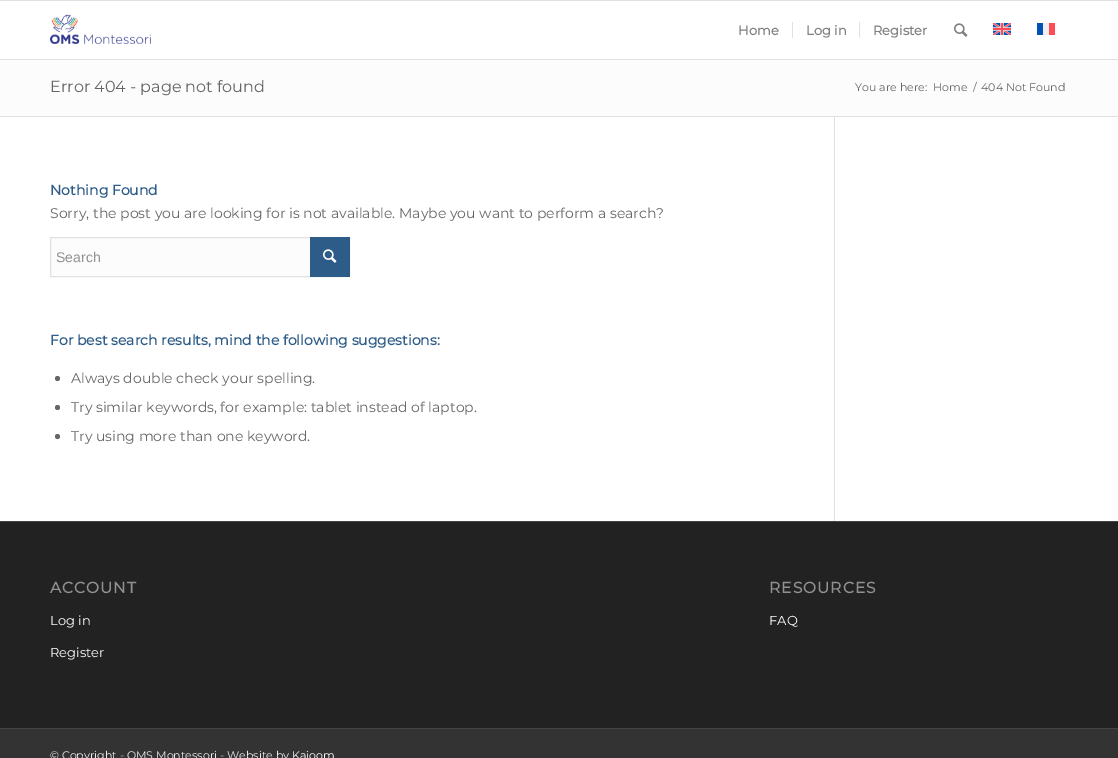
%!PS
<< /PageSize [1118 758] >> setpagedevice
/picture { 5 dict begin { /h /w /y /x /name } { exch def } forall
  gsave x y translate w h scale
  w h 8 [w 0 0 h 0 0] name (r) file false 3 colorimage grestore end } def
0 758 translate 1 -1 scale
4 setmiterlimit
1 setgray
0 0 1118 758 rectfill
0.882 setgray
0 0 1118 1 rectfill
0 59 1118 1 rectfill
(img1.rgb) 50 14 101 30 picture
/Montserrat-Bold [13 0 0 -13 0 0] selectfont
0.502 setgray
738 35 moveto (Home) show
806 35 moveto (Log in) show
0.882 setgray
792 22 1 16 rectfill
0.502 setgray
873 35 moveto (Register) show
0.882 setgray
859 22 1 16 rectfill
(img2.rgb) 954 23 14 14 picture
(img3.rgb) 993 23 18 12 picture
0.941 setgray
1043 23 6 12 rectfill
1 0.294 0.333 setrgbcolor
1049 23 6 12 rectfill
0 0.322 0.706 setrgbcolor
1037 23 6 12 rectfill
0.988 setgray
0 60 1118 56 rectfill
/Montserrat-Thin [16 0 0 -16 0 0] selectfont
0.4 setgray
50 92 moveto (Error 404 - page not found) show
/Montserrat-Thin [11 0 0 -11 0 0] selectfont
855 91 moveto (You are here:) show
933 91 moveto (Home) show
973 91 moveto (/) show
981 91 moveto (404 Not Found) show
0.882 setgray
0 116 1118 1 rectfill
834 117 1 404 rectfill
/Montserrat-Bold [14 0 0 -14 0 0] selectfont
0.176 0.361 0.533 setrgbcolor
50 195 moveto (Nothing Found) show
/Montserrat-Thin [14 0 0 -14 0 0] selectfont
0.4 setgray
50 218 moveto (Sorry, the post you are looking for is not available. Maybe you want to perform a search?) show
0.988 setgray
51 238 259 38 rectfill
0.882 setgray
50.5 237.5 299 39 rectstroke
/LiberationSans-Regular [14 0 0 -14 0 0] selectfont
0.569 setgray
56 262 moveto (Search) show
0.176 0.361 0.533 setrgbcolor
310 237 40 40 rectfill
(img4.rgb) 323 249 14 14 picture
/Montserrat-Bold [14 0 0 -14 0 0] selectfont
50 345 moveto (For best search results, mind the following suggestions:) show
0.4 setgray
newpath 57.5 378.5 2.5 0 360 arc closepath fill
/Montserrat-Thin [14 0 0 -14 0 0] selectfont
71 383 moveto (Always double check your spelling.) show
newpath 57.5 407.5 2.5 0 360 arc closepath fill
71 412 moveto (Try similar keywords, for example: tablet instead of laptop.) show
newpath 57.5 436.5 2.5 0 360 arc closepath fill
71 441 moveto (Try using more than one keyword.) show
0.133 setgray
0 522 1118 206 rectfill
0.267 setgray
0 521 1118 1 rectfill
/Montserrat-Bold [15.5 0 0 -15.5 0 0] selectfont
0.569 setgray
50 593 moveto 1 0 (ACCOUNT) ashow
/Montserrat-Thin [13 0 0 -13 0 0] selectfont
1 setgray
50 625 moveto (Log in) show
50 657 moveto (Register) show
/Montserrat-Bold [15.5 0 0 -15.5 0 0] selectfont
0.569 setgray
769 593 moveto 1 0 (RESOURCES) ashow
/Montserrat-Thin [13 0 0 -13 0 0] selectfont
1 setgray
769 625 moveto (FAQ) show
0.2 setgray
0 729 1118 29 rectfill
0.267 setgray
0 728 1118 1 rectfill
/Montserrat-Thin [11 0 0 -11 0 0] selectfont
0.933 setgray
50 759 moveto (© Copyright - OMS Montessori - Website by) show
1 setgray
292 759 moveto (Kajoom) show
showpage
